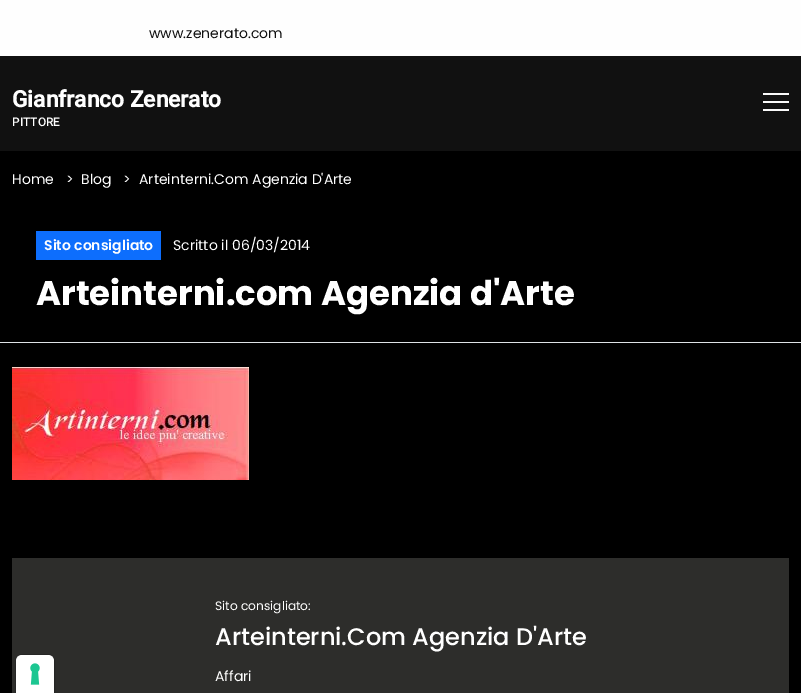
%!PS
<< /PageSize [801 693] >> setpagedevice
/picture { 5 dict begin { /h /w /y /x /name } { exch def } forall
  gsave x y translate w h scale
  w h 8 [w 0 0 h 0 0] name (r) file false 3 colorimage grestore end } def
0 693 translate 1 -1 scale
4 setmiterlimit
0 setgray
0 0 801 693 rectfill
0.996 setgray
0 0 801 56 rectfill
/Poppins-Regular [14 0 0 -14 0 0] selectfont
0.067 setgray
149 38 moveto (www.zenerato.com) show
0 56 801 95 rectfill
/Roboto-Bold [22.75 0 0 -22.75 0 0] selectfont
1 setgray
12 107 moveto (Gianfranco Zenerato) show
/Roboto-Medium [12 0 0 -12 0 0] selectfont
12 126 moveto (PITTORE) show
0.98 setgray
763 101 26 2 rectfill
763 93 26 2 rectfill
763 109 26 2 rectfill
/Poppins-Regular [14 0 0 -14 0 0] selectfont
1 setgray
12 184 moveto (Home) show
66 184 moveto (>) show
81 184 moveto (Blog) show
123 184 moveto (>) show
139 184 moveto (Arteinterni.Com Agenzia D'Arte) show
0.871 0.886 0.902 setrgbcolor
0 342 801 1 rectfill
0.051 0.431 0.992 setrgbcolor
36 231 125 29 rectfill
/Poppins-SemiBold [14 0 0 -14 0 0] selectfont
1 setgray
44 250 moveto (Sito consigliato) show
/Poppins-Regular [14 0 0 -14 0 0] selectfont
173 250 moveto (Scritto il 06/03/2014) show
/Poppins-Bold [34 0 0 -34 0 0] selectfont
36 305 moveto (Arteinterni.com Agenzia d'Arte) show
(img1.rgb) 12 367 237 113 picture
0.176 0.176 0.169 setrgbcolor
12 558 777 135 rectfill
/Poppins-Regular [12.25 0 0 -12.25 0 0] selectfont
1 setgray
215 610 moveto (Sito consigliato:) show
/Poppins-Medium [24 0 0 -24 0 0] selectfont
215 645 moveto (Arteinterni.Com Agenzia D'Arte) show
/Poppins-Regular [14 0 0 -14 0 0] selectfont
215 681 moveto (Affari) show
0.149 0.149 0.145 setrgbcolor
newpath 22 654.5 moveto 48 654.5 lineto 51.5 654.5 54.5 657.5 54.5 661 curveto 54.5 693.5 lineto 15.5 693.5 lineto 15.5 661 lineto 15.5 657.5 18.5 654.5 22 654.5 curveto closepath stroke
1 setgray
newpath 22 655 moveto 48 655 lineto 51.5 655 54 657.5 54 661 curveto 54 693 lineto 16 693 lineto 16 661 lineto 16 657.5 18.5 655 22 655 curveto closepath fill
(img2.rgb) 30 663 10 22 picture
showpage
